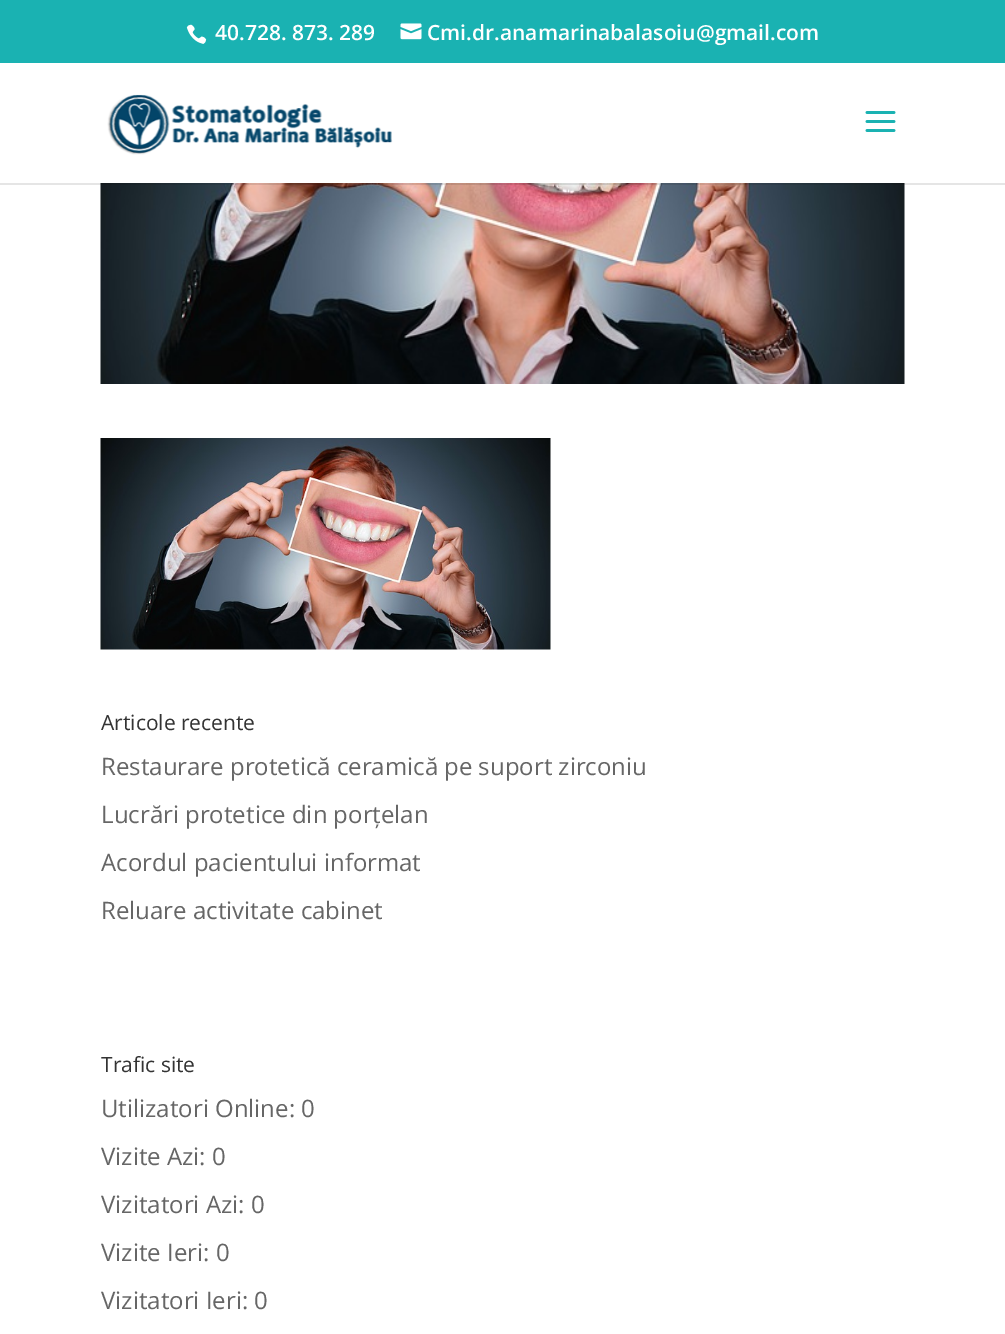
%!PS
<< /PageSize [1005 1334] /PageUsesTransparency true >> setpagedevice
/alpha { dup .setfillconstantalpha .setstrokeconstantalpha } def
/picture { 5 dict begin { /h /w /y /x /name } { exch def } forall
  gsave x y translate w h scale
  w h 8 [w 0 0 h 0 0] name (r) file false 3 colorimage grestore end } def
0 .pushpdf14devicefilter
0 1334 translate 1 -1 scale
4 setmiterlimit
1 setgray
0 0 1005 1334 rectfill
0.102 0.698 0.698 setrgbcolor
0 0 1005 63 rectfill
(img1.rgb) 186 24 21 20 picture
/OpenSans-SemiBold [21 0 0 -21 0 0] selectfont
1 setgray
215 40 moveto (40.728. 873. 289) show
(img2.rgb) 400 23 22 17 picture
427 40 moveto (Cmi.dr.anamarinabalasoiu@gmail.com) show
(img5.rgb) 100 183 805 201 picture
0.1 alpha
0 setgray
0 183 1005 2 rectfill
1 alpha
(img3.rgb) 107 94 286 61 picture
(img4.rgb) 865 111 31 21 picture
(img6.rgb) 100 438 451 212 picture
/OpenSans-Regular [21 0 0 -21 0 0] selectfont
0.2 setgray
101 730 moveto (Articole recente) show
/OpenSans-Regular [24 0 0 -24 0 0] selectfont
0.4 setgray
101 775 moveto (Restaurare protetică ceramică pe suport zirconiu) show
101 823 moveto (Lucrări protetice din porțelan) show
101 871 moveto (Acordul pacientului informat) show
101 919 moveto (Reluare activitate cabinet) show
/OpenSans-Regular [21 0 0 -21 0 0] selectfont
0.2 setgray
101 1072 moveto (Trafic site) show
/OpenSans-Regular [24 0 0 -24 0 0] selectfont
0.4 setgray
101 1117 moveto (Utilizatori Online: 0) show
101 1165 moveto (Vizite Azi: 0) show
101 1213 moveto (Vizitatori Azi: 0) show
101 1261 moveto (Vizite Ieri: 0) show
101 1309 moveto (Vizitatori Ieri: 0) show
.poppdf14devicefilter showpage
